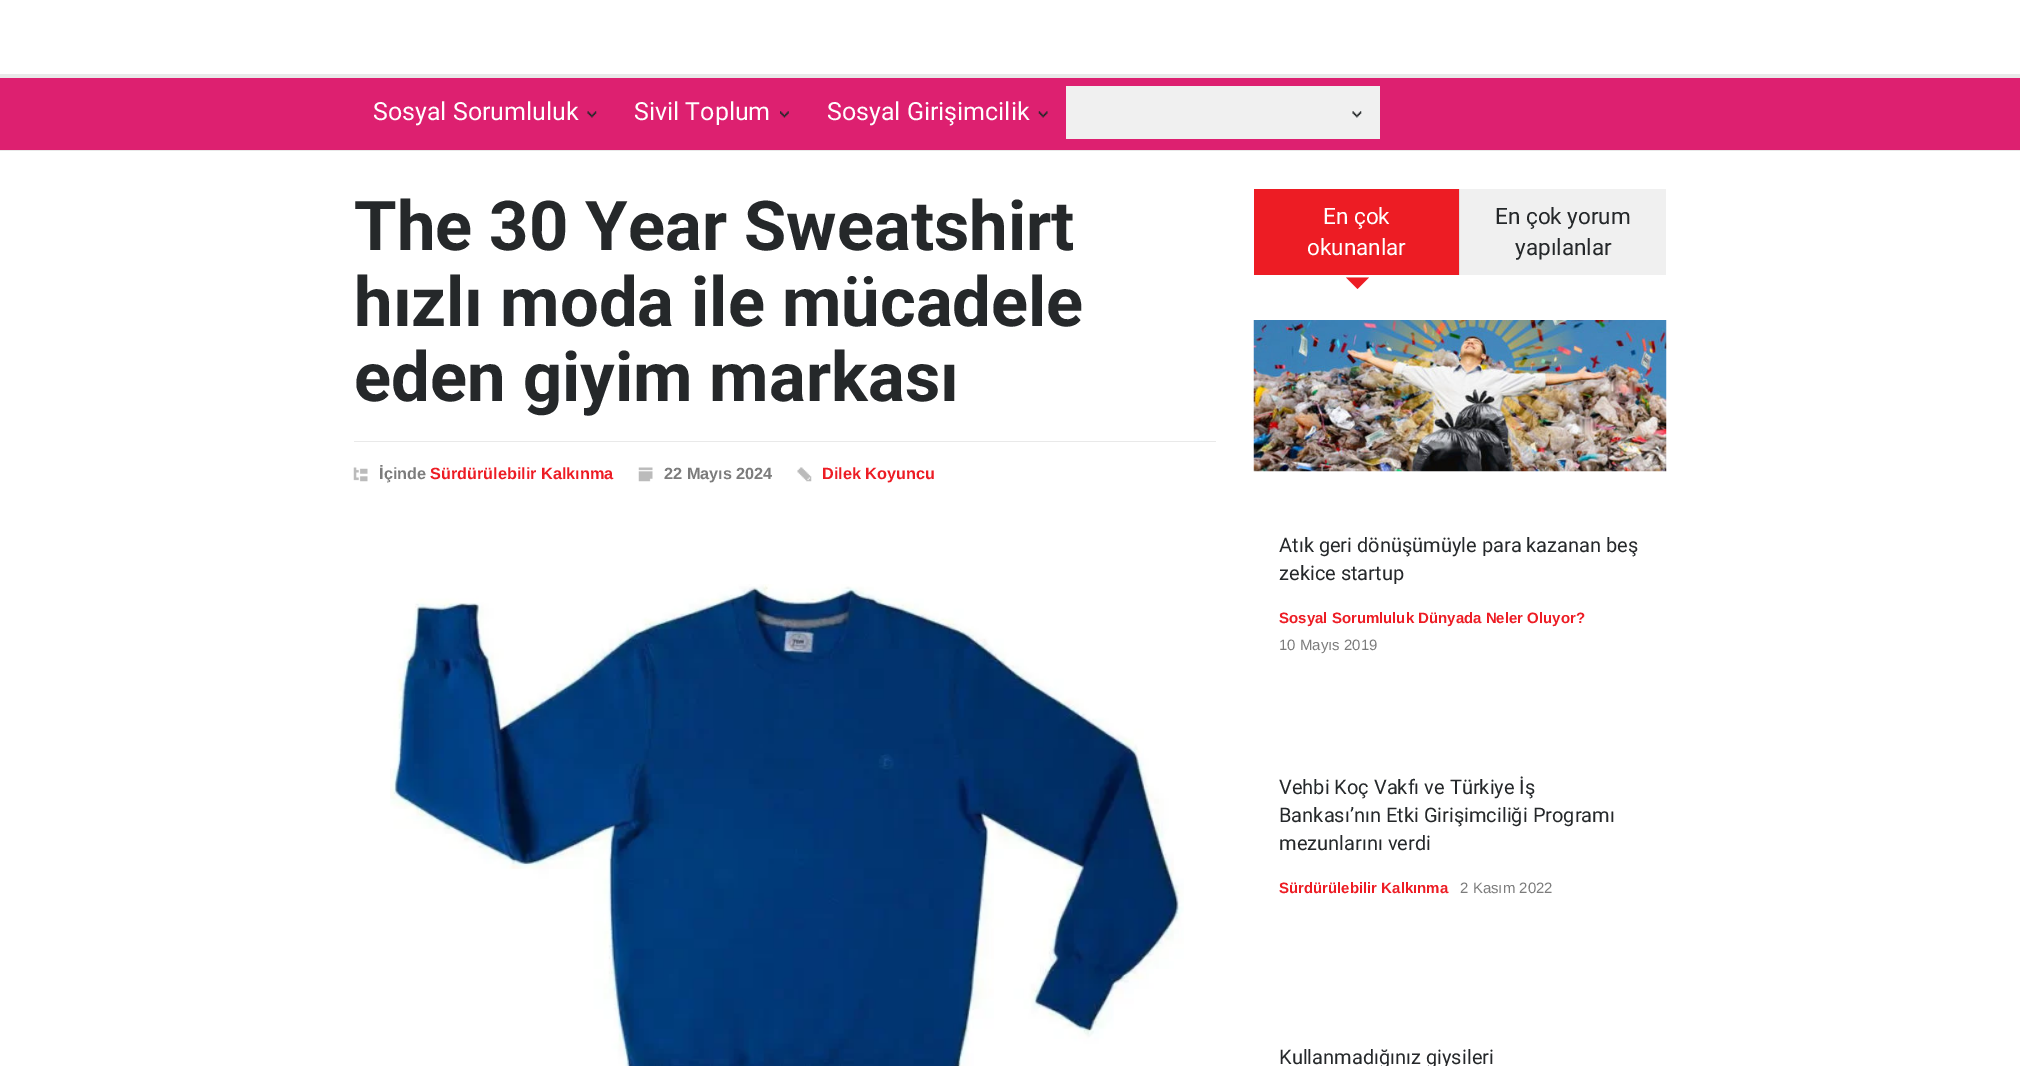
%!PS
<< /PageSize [2020 1066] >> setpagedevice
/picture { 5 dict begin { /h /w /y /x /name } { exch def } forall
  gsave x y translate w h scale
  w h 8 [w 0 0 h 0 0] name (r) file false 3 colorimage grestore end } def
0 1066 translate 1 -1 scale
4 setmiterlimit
1 setgray
0 0 2020 1066 rectfill
0.914 setgray
0 74 2020 4 rectfill
0 150 2020 1 rectfill
0.867 0.125 0.439 setrgbcolor
0 78 2020 72 rectfill
(img1.rgb) 587 111 10 7 picture
/Roboto-Regular [25 0 0 -25 0 0] selectfont
1 setgray
373 120 moveto (Sosyal Sorumluluk) show
(img2.rgb) 780 111 9 7 picture
634 120 moveto (Sivil Toplum) show
(img3.rgb) 1038 111 10 7 picture
827 120 moveto (Sosyal Girişimcilik) show
0.941 setgray
1066 86 314 53 rectfill
(img4.rgb) 1352 111 10 7 picture
/Roboto-Bold [68.75 0 0 -68.75 0 0] selectfont
0.145 0.157 0.165 setrgbcolor
354 250 moveto (The 30 Year Sweatshirt) show
354 326 moveto (hızlı moda ile mücadele) show
354 401 moveto (eden giyim markası) show
0.914 setgray
354 441 862 1 rectfill
(img5.rgb) 353 467 15 15 picture
/LiberationSans-Bold [16.25 0 0 -16.25 0 0] selectfont
0.486 setgray
379 479 moveto (İçinde) show
0.929 0.11 0.141 setrgbcolor
430 479 moveto (Sürdürülebilir Kalkınma) show
(img6.rgb) 638 467 15 15 picture
0.486 setgray
664 479 moveto (22 Mayıs 2024) show
(img7.rgb) 797 467 15 15 picture
0.929 0.11 0.141 setrgbcolor
822 479 moveto (Dilek Koyuncu) show
(img8.rgb) 390 584 794 482 picture
1254 189 205 86 rectfill
0.878 setgray
1459 189 1 86 rectfill
/Roboto-Regular [22.5 0 0 -22.5 0 0] selectfont
1 setgray
1323 224 moveto (En çok) show
1307 255 moveto (okunanlar) show
0.929 0.11 0.141 setrgbcolor
newpath 1346 277.5 moveto 1369 277.5 lineto 1357.5 289 lineto closepath fill
0.941 setgray
1460 189 206 86 rectfill
0.145 0.157 0.165 setrgbcolor
1495 224 moveto (En çok yorum) show
1515 255 moveto (yapılanlar) show
(img9.rgb) 1253 320 414 152 picture
/Roboto-Regular [20 0 0 -20 0 0] selectfont
1279 552 moveto (Atık geri dönüşümüyle para kazanan beş) show
1279 580 moveto (zekice startup) show
/LiberationSans-Bold [15 0 0 -15 0 0] selectfont
0.929 0.11 0.141 setrgbcolor
1279 623 moveto (Sosyal Sorumluluk Dünyada Neler Oluyor?) show
/LiberationSans-Regular [15 0 0 -15 0 0] selectfont
0.486 setgray
1279 650 moveto (10 Mayıs 2019) show
/Roboto-Regular [20 0 0 -20 0 0] selectfont
0.145 0.157 0.165 setrgbcolor
1279 794 moveto (Vehbi Koç Vakfı ve Türkiye İş) show
1279 822 moveto (Bankası’nın Etki Girişimciliği Programı) show
1279 850 moveto (mezunlarını verdi) show
/LiberationSans-Bold [15 0 0 -15 0 0] selectfont
0.929 0.11 0.141 setrgbcolor
1279 893 moveto (Sürdürülebilir Kalkınma) show
/LiberationSans-Regular [15 0 0 -15 0 0] selectfont
0.486 setgray
1460 893 moveto (2 Kasım 2022) show
/Roboto-Regular [20 0 0 -20 0 0] selectfont
0.145 0.157 0.165 setrgbcolor
1279 1064 moveto (Kullanmadığınız giysileri) show
showpage
